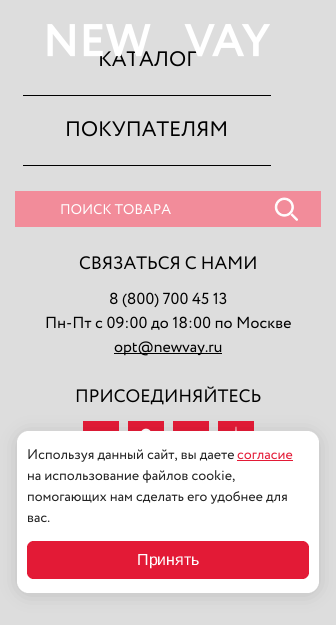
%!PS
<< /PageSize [336 625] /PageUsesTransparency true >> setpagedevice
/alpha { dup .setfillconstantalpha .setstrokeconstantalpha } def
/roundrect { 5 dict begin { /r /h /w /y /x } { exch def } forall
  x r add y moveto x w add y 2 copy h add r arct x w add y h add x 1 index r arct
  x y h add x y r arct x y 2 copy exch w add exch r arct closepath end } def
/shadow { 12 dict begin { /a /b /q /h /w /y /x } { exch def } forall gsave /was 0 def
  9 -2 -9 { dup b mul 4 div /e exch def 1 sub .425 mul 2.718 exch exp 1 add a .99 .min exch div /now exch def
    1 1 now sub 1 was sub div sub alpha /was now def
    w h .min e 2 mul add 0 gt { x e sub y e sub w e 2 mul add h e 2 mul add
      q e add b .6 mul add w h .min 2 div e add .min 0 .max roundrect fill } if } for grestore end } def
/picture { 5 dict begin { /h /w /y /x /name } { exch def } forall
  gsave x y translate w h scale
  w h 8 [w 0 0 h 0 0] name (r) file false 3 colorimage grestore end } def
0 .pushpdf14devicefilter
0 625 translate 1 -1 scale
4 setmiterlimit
0.867 setgray
0 0 336 625 rectfill
(img2.rgb) 100 51 97 16 picture
(img1.rgb) 47 24 223 33 picture
0 setgray
23 95 248 1 rectfill
23 165 248 1 rectfill
(img3.rgb) 67 121 159 16 picture
0.949 0.549 0.604 setrgbcolor
15 191 306 36 rectfill
(img4.rgb) 61 204 110 11 picture
(img5.rgb) 274 197 24 24 picture
(img6.rgb) 79 256 177 14 picture
(img7.rgb) 110 292 117 16 picture
(img8.rgb) 46 316 245 14 picture
0 setgray
114 353 108 1 rectfill
(img9.rgb) 114 341 108 15 picture
(img10.rgb) 76 386 185 19 picture
(img11.rgb) 83 421 36 10 picture
(img12.rgb) 128 421 36 10 picture
(img13.rgb) 173 421 36 10 picture
(img14.rgb) 218 421 36 10 picture
17 433 302 162 12 8 0.12 shadow
1 setgray
17 431 302 162 12 roundrect fill
(img15.rgb) 28 449 206 13 picture
(img16.rgb) 237 452 56 8 picture
0.89 0.102 0.212 setrgbcolor
237 460 56 1 rectfill
(img17.rgb) 28 470 207 13 picture
(img18.rgb) 28 491 259 13 picture
(img19.rgb) 28 515 22 8 picture
27 541 282 38 7 roundrect fill
/LiberationSans-Regular [16 0 0 -16 0 0] selectfont
1 setgray
137 565 moveto (Принять) show
.poppdf14devicefilter showpage
